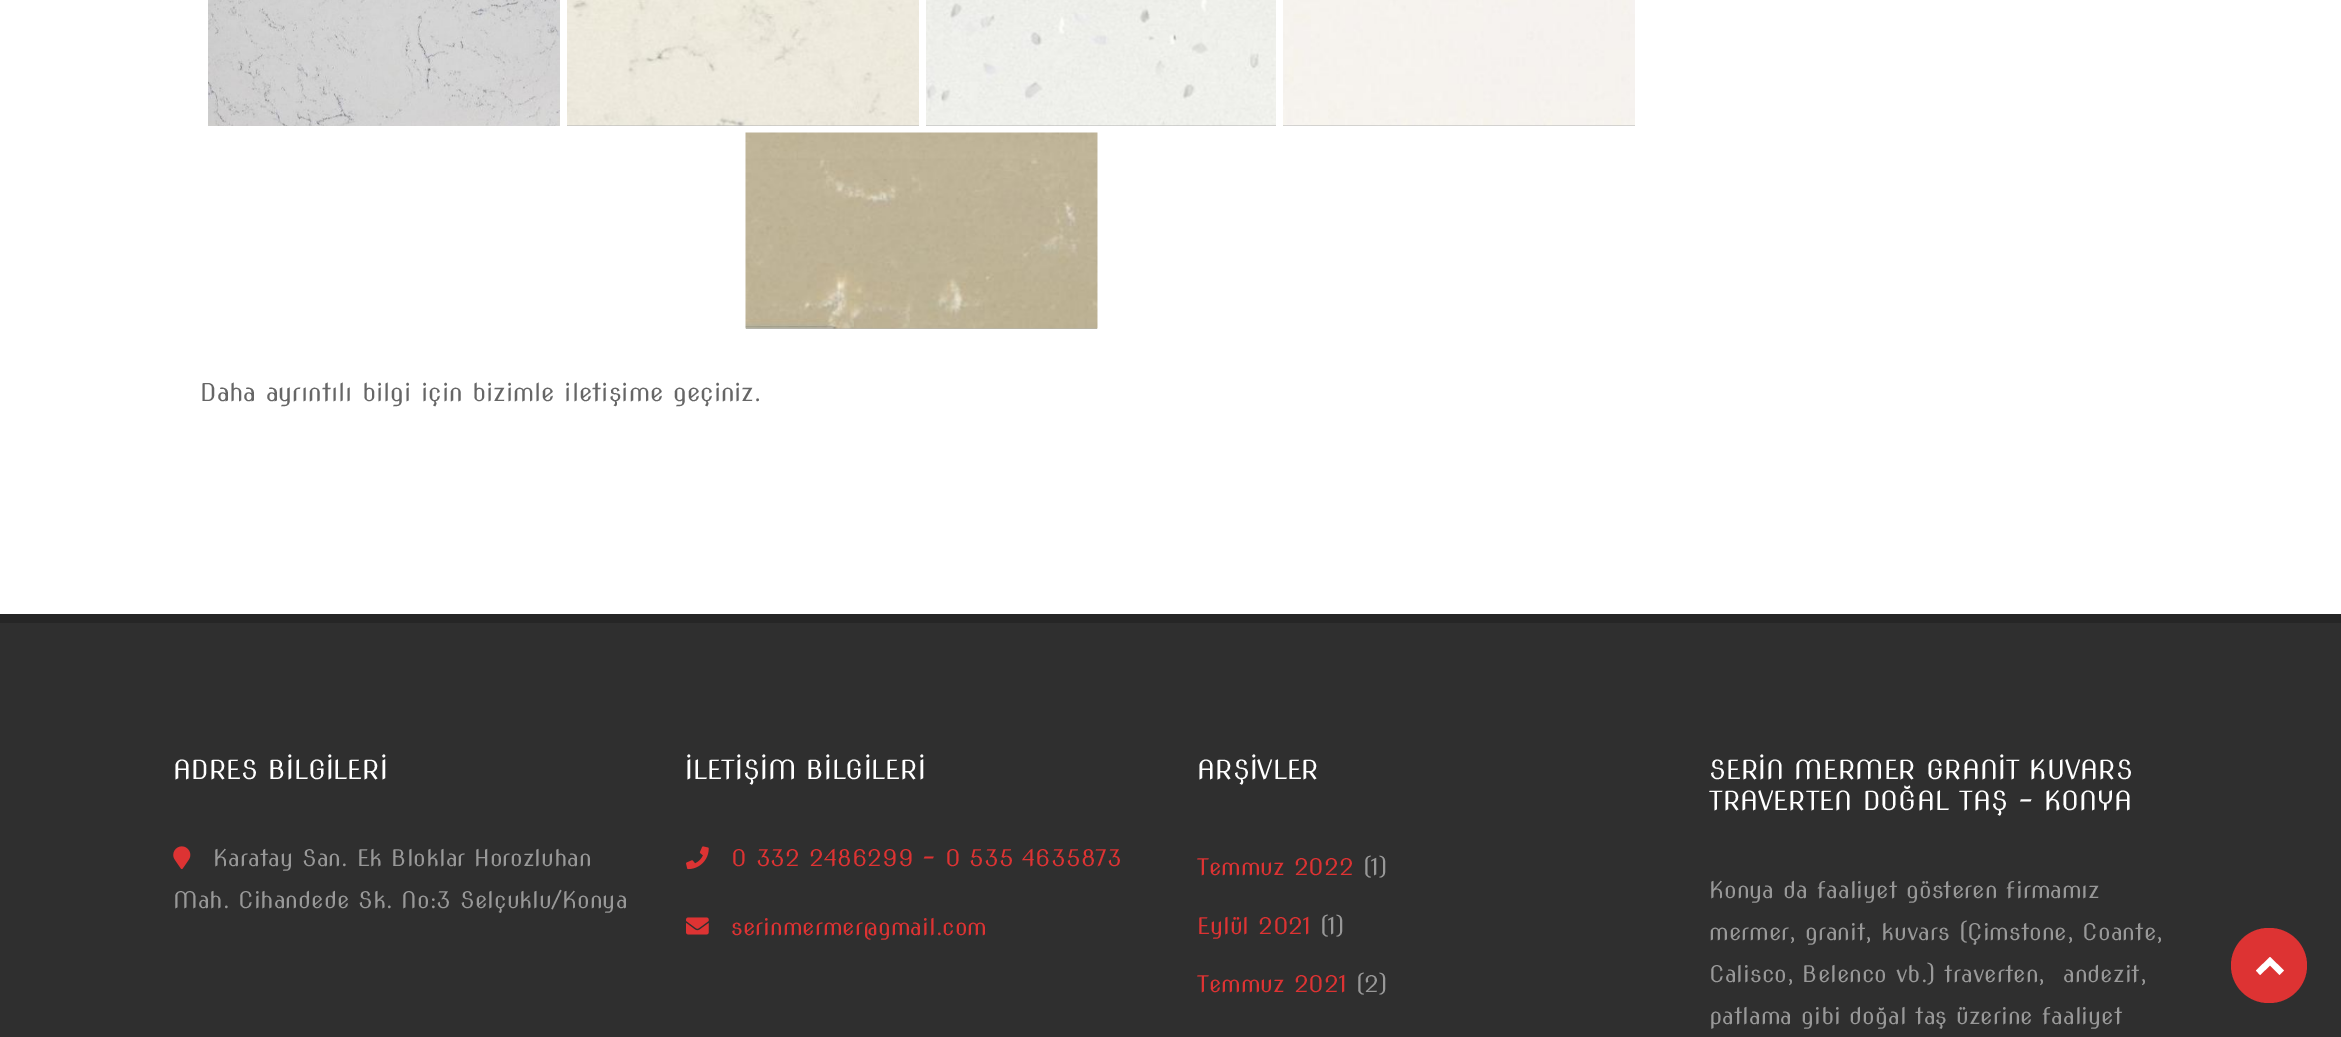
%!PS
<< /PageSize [2341 1037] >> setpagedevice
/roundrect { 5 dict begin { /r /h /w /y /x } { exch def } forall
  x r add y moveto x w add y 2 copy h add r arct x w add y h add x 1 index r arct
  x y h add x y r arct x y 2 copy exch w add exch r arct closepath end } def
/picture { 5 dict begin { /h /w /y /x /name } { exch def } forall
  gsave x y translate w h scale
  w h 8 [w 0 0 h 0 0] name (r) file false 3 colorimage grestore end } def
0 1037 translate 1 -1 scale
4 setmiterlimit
1 setgray
0 0 2341 1037 rectfill
(img1.rgb) 208 0 352 126 picture
0.702 setgray
567 125 352 1 rectfill
(img2.rgb) 567 0 352 126 picture
926 125 350 1 rectfill
(img3.rgb) 926 0 350 126 picture
1283 125 352 1 rectfill
(img4.rgb) 1283 0 352 126 picture
746 328 351 1 rectfill
(img5.rgb) 745 132 353 197 picture
/NovaSlim-Regular [24.5 0 0 -24.5 0 0] selectfont
0.4 setgray
200 401 moveto (Daha ayrıntılı bilgi için bizimle iletişime geçiniz.) show
0.184 setgray
0 623 2341 414 rectfill
0.149 setgray
0 614 2341 9 rectfill
/NovaSlim-Regular [26.25 0 0 -26.25 0 0] selectfont
1 setgray
173 779 moveto (ADRES BİLGİLERİ) show
(img6.rgb) 173 846 18 24 picture
/NovaSlim-Regular [22.75 0 0 -22.75 0 0] selectfont
0.596 setgray
213 866 moveto (Karatay San. Ek Bloklar Horozluhan) show
173 908 moveto (Mah. Cihandede Sk. No:3 Selçuklu/Konya) show
/NovaSlim-Regular [26.25 0 0 -26.25 0 0] selectfont
1 setgray
685 779 moveto (İLETİŞİM BİLGİLERİ) show
(img7.rgb) 686 846 23 24 picture
/NovaSlim-Regular [22.75 0 0 -22.75 0 0] selectfont
0.867 0.2 0.2 setrgbcolor
731 866 moveto (0 332 2486299 – 0 535 4635873) show
(img8.rgb) 686 917 23 18 picture
731 935 moveto (serinmermer@gmail.com) show
/NovaSlim-Regular [26.25 0 0 -26.25 0 0] selectfont
1 setgray
1197 779 moveto (ARŞİVLER) show
/NovaSlim-Regular [22.75 0 0 -22.75 0 0] selectfont
0.867 0.2 0.2 setrgbcolor
1197 875 moveto (Temmuz 2022) show
0.596 setgray
1363 875 moveto (\(1\)) show
0.867 0.2 0.2 setrgbcolor
1197 934 moveto (Eylül 2021) show
0.596 setgray
1320 934 moveto (\(1\)) show
0.867 0.2 0.2 setrgbcolor
1197 992 moveto (Temmuz 2021) show
0.596 setgray
1356 992 moveto (\(2\)) show
/NovaSlim-Regular [26.25 0 0 -26.25 0 0] selectfont
1 setgray
1709 779 moveto (SERİN MERMER GRANİT KUVARS) show
1709 810 moveto (TRAVERTEN DOĞAL TAŞ – KONYA) show
/NovaSlim-Regular [22.75 0 0 -22.75 0 0] selectfont
0.596 setgray
1709 898 moveto (Konya da faaliyet gösteren firmamız) show
1709 940 moveto (mermer, granit, kuvars \(Çimstone, Coante,) show
1709 982 moveto (Calisco, Belenco vb.\) traverten,  andezit,) show
1709 1024 moveto (patlama gibi doğal taş üzerine faaliyet) show
0.867 0.2 0.2 setrgbcolor
2231 928 76 75 37.5 roundrect fill
1 setgray
newpath 2270 957 moveto 2284 970.5 lineto 2279.5 975 lineto 2270 965.5 lineto 2260 975 lineto 2256 970.5 lineto closepath fill
showpage
